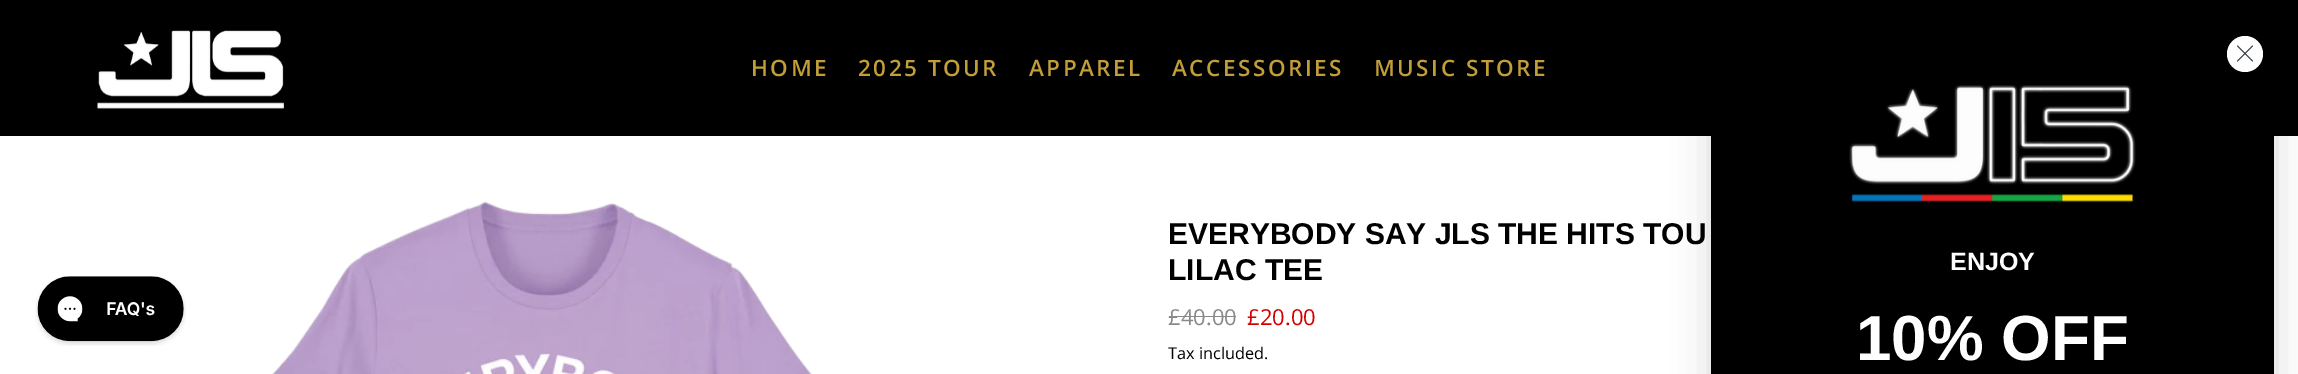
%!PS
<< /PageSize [2298 374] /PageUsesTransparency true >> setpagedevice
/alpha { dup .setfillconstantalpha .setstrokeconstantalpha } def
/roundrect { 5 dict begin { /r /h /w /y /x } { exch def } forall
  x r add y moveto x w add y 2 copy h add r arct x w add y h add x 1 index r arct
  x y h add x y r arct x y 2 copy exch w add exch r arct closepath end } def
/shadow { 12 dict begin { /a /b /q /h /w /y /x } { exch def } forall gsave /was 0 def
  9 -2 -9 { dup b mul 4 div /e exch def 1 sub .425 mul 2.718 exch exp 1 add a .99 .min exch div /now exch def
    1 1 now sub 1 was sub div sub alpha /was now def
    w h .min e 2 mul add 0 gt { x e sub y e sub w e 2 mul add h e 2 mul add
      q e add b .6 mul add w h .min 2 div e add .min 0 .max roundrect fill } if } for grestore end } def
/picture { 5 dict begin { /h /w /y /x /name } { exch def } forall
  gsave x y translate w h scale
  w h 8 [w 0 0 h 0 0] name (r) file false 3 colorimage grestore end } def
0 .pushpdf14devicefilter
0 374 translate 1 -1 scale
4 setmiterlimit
1 setgray
0 0 2298 374 rectfill
0 setgray
0 0 2298 136 rectfill
(img1.rgb) 97 30 187 79 picture
/OpenSans-SemiBold [22.5 0 0 -22.5 0 0] selectfont
0.757 0.62 0.22 setrgbcolor
751 76 moveto 2.5 0 (HOME) ashow
858 76 moveto 2.5 0 (2025 TOUR) ashow
1029 76 moveto 2.5 0 (APPAREL) ashow
1172 76 moveto 2.5 0 (ACCESSORIES) ashow
1374 76 moveto 2.5 0 (MUSIC STORE) ashow
(img2.rgb) 35 276 151 70 picture
(img3.rgb) 272 201 540 173 picture
/LiberationSans-Bold [30 0 0 -30 0 0] selectfont
0 setgray
1168 244 moveto (EVERYBODY SAY JLS THE HITS TOU) show
1168 280 moveto (LILAC TEE) show
/OpenSans-Regular [22 0 0 -22 0 0] selectfont
0.537 setgray
1168 325 moveto (£40.00) show
1169 316 67 1 rectfill
0.824 0 0 setrgbcolor
1247 325 moveto (£20.00) show
/OpenSans-Regular [16.25 0 0 -16.25 0 0] selectfont
0 setgray
1168 359 moveto (Tax included.) show
1711 25 563 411 5 19 0.15 shadow
1711 25 563 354 5 roundrect fill
1 setgray
newpath 2245 54 18 0 360 arc closepath fill
0.216 0.247 0.278 setrgbcolor
0.9 setlinewidth
1 setlinecap
1 setlinejoin
newpath 2237.5 46 moveto 2252.5 61 lineto 2237.5 61 moveto 2252.5 46 lineto closepath stroke
(img4.rgb) 1849 85 287 118 picture
/LiberationSans-Bold [25 0 0 -25 0 0] selectfont
1 setgray
1950 270 moveto (ENJOY) show
/LiberationSans-Bold [63.75 0 0 -63.75 0 0] selectfont
1856 360 moveto (10% OFF) show
.poppdf14devicefilter showpage
